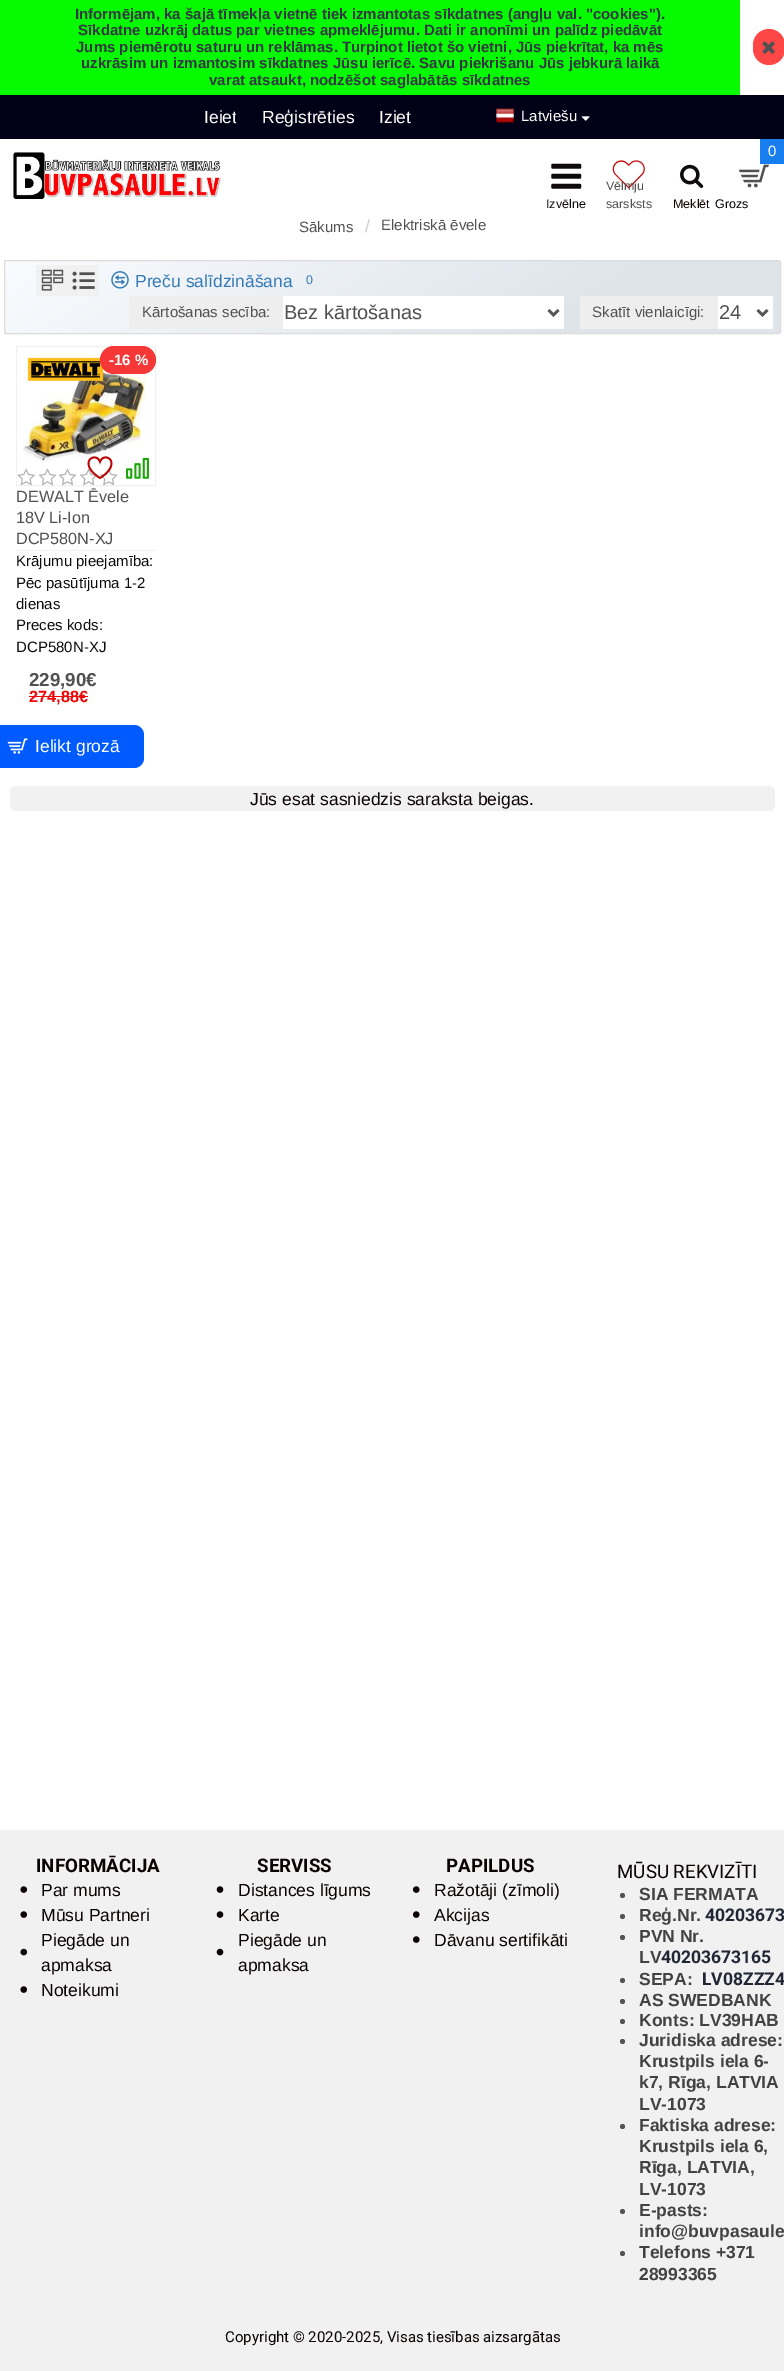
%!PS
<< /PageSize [784 2371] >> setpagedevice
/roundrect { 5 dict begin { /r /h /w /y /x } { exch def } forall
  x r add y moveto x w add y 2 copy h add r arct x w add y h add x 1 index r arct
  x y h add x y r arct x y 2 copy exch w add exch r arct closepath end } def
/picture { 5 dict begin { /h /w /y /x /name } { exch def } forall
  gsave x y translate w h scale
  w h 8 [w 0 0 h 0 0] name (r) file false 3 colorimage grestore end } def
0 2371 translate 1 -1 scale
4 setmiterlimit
1 setgray
0 0 784 2371 rectfill
0.027 0.984 0 setrgbcolor
0 0 740 95 rectfill
/LiberationSans-Bold [15 0 0 -15 0 0] selectfont
0.2 0.216 0.271 setrgbcolor
75 19 moveto (Informējam, ka šajā tīmekļa vietnē tiek izmantotas sīkdatnes \(angļu val. "cookies"\).) show
78 35 moveto (Sīkdatne uzkrāj datus par vietnes apmeklējumu. Dati ir anonīmi un palīdz piedāvāt) show
76 52 moveto (Jums piemērotu saturu un reklāmas. Turpinot lietot šo vietni, Jūs piekrītat, ka mēs) show
81 68 moveto (uzkrāsim un izmantosim sīkdatnes Jūsu ierīcē. Savu piekrišanu Jūs jebkurā laikā) show
209 85 moveto (varat atsaukt, nodzēšot saglabātās sīkdatnes) show
1 0.278 0.278 setrgbcolor
753 29 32 36 16 roundrect fill
(img1.rgb) 762 41 13 13 picture
0.008 0 0.086 setrgbcolor
0 95 784 44 rectfill
gsave
204 104 32 25 rectclip
/LiberationSans-Regular [17.5 0 0 -17.5 0 0] selectfont
1 setgray
204 123 moveto (Ieiet) show
grestore
/LiberationSans-Regular [17.5 0 0 -17.5 0 0] selectfont
1 setgray
262 123 moveto (Reģistrēties) show
379 123 moveto (Iziet) show
(img2.rgb) 496 108 18 15 picture
/LiberationSans-Regular [15 0 0 -15 0 0] selectfont
521 121 moveto (Latviešu) show
(img3.rgb) 581 116 9 5 picture
(img4.rgb) 13 152 209 47 picture
(img5.rgb) 551 163 31 26 picture
/LiberationSans-Regular [12.5 0 0 -12.5 0 0] selectfont
0.059 0.043 0.043 setrgbcolor
546 208 moveto (Izvēlne) show
(img6.rgb) 612 160 33 29 picture
0.322 0.318 0.318 setrgbcolor
606 190 moveto (Vēlmju) show
606 208 moveto (sarsksts) show
(img7.rgb) 680 164 24 24 picture
0.067 0.008 0.008 setrgbcolor
673 208 moveto (Meklēt) show
0.094 0.494 0.937 setrgbcolor
760 139 24 25 rectfill
/LiberationSans-Regular [15 0 0 -15 0 0] selectfont
1 setgray
768 156 moveto (0) show
(img8.rgb) 738 164 31 24 picture
/LiberationSans-Regular [12.5 0 0 -12.5 0 0] selectfont
0 setgray
715 208 moveto (Grozs) show
/LiberationSans-Regular [15 0 0 -15 0 0] selectfont
0.322 0.318 0.318 setrgbcolor
299 232 moveto (Sākums) show
/LiberationSans-Regular [17.5 0 0 -17.5 0 0] selectfont
0.8 setgray
365 232 moveto (/) show
/LiberationSans-Regular [15 0 0 -15 0 0] selectfont
0.322 0.318 0.318 setrgbcolor
381 230 moveto (Elektriskā ēvele) show
gsave newpath 4 260 moveto 5 260 lineto 5 261 lineto 4 261 lineto closepath clip newpath
<< /ShadingType 2 /ColorSpace /DeviceRGB /Coords [-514 24 -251 428] /Extend [true true] /Function << /FunctionType 3 /Domain [0 1] /Functions [<< /FunctionType 2 /Domain [0 1] /C0 [0.976 0.988 1] /C1 [0.871 0.894 0.918] /N 1 >> << /FunctionType 2 /Domain [0 1] /C0 [0.871 0.894 0.918] /C1 [0.871 0.894 0.918] /N 1 >>] /Bounds [0.74] /Encode [0 1 0 1] >> >> shfill grestore
gsave newpath 5 261 moveto 780 261 lineto 780 333 lineto 5 333 lineto closepath clip newpath
<< /ShadingType 2 /ColorSpace /DeviceRGB /Coords [261 95 524 499] /Extend [true true] /Function << /FunctionType 3 /Domain [0 1] /Functions [<< /FunctionType 2 /Domain [0 1] /C0 [0.976 0.988 1] /C1 [0.871 0.894 0.918] /N 1 >> << /FunctionType 2 /Domain [0 1] /C0 [0.871 0.894 0.918] /C1 [0.871 0.894 0.918] /N 1 >>] /Bounds [0.74] /Encode [0 1 0 1] >> >> shfill grestore
gsave newpath 4 333 moveto 5 333 lineto 5 334 lineto 4 334 lineto closepath clip newpath
<< /ShadingType 2 /ColorSpace /DeviceRGB /Coords [-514 166 -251 570] /Extend [true true] /Function << /FunctionType 3 /Domain [0 1] /Functions [<< /FunctionType 2 /Domain [0 1] /C0 [0.976 0.988 1] /C1 [0.871 0.894 0.918] /N 1 >> << /FunctionType 2 /Domain [0 1] /C0 [0.871 0.894 0.918] /C1 [0.871 0.894 0.918] /N 1 >>] /Bounds [0.74] /Encode [0 1 0 1] >> >> shfill grestore
0.863 setgray
4.5 260.5 776 73 2 roundrect stroke
0.945 setgray
36 265 32 31 2.5 roundrect fill
(img9.rgb) 41 269 23 22 picture
68 265 31 31 2.5 roundrect fill
(img10.rgb) 72 271 23 19 picture
(img11.rgb) 111 271 18 18 picture
/LiberationSans-Regular [17.5 0 0 -17.5 0 0] selectfont
0.2 0.478 0.718 setrgbcolor
135 287 moveto (Preču salīdzināšana) show
/LiberationSans-Regular [12.5 0 0 -12.5 0 0] selectfont
306 284 moveto (0) show
0.933 setgray
129 296 154 33 rectfill
/LiberationSans-Regular [15 0 0 -15 0 0] selectfont
0.322 0.318 0.318 setrgbcolor
142 317 moveto (Kārtošanas secība:) show
1 setgray
283 296 281 33 rectfill
0.333 setgray
2.5 setlinewidth
newpath 548.5 310 moveto 553.5 315 lineto 558.5 310 lineto stroke
/LiberationSans-Regular [20 0 0 -20 0 0] selectfont
0.322 0.318 0.318 setrgbcolor
284 319 moveto (Bez kārtošanas) show
0.933 setgray
580 296 138 33 rectfill
/LiberationSans-Regular [15 0 0 -15 0 0] selectfont
0.322 0.318 0.318 setrgbcolor
592 317 moveto (Skatīt vienlaicīgi:) show
1 setgray
718 296 55 33 rectfill
0.333 setgray
newpath 757.5 310 moveto 762.5 315 lineto 767.5 310 lineto stroke
/LiberationSans-Regular [20 0 0 -20 0 0] selectfont
0.322 0.318 0.318 setrgbcolor
719 319 moveto (24) show
0.945 setgray
1 setlinewidth
16.5 346.5 139 139 rectstroke
(img12.rgb) 23 367 123 95 picture
(img13.rgb) 27 357 77 24 picture
0.961 0.216 0.216 setrgbcolor
100 346 56 28 14 roundrect fill
/LiberationSans-Bold [15 0 0 -15 0 0] selectfont
1 setgray
109 365 moveto (-16 %) show
(img14.rgb) 17 468 18 18 picture
(img15.rgb) 38 468 18 18 picture
(img15.rgb) 58 468 18 18 picture
(img16.rgb) 80 468 18 18 picture
(img16.rgb) 100 468 18 18 picture
0.945 setgray
16 550 140 1 rectfill
/LiberationSans-Regular [16.25 0 0 -16.25 0 0] selectfont
0.322 0.318 0.318 setrgbcolor
16 502 moveto (DEWALT Ēvele) show
16 523 moveto (18V Li-Ion) show
16 544 moveto (DCP580N-XJ) show
/LiberationSans-Regular [15 0 0 -15 0 0] selectfont
0.059 0.043 0.043 setrgbcolor
16 566 moveto (Krājumu pieejamība:) show
16 588 moveto (Pēc pasūtījuma 1-2) show
16 609 moveto (dienas) show
16 630 moveto (Preces kods:) show
16 652 moveto (DCP580N-XJ) show
/LiberationSans-Bold [18.75 0 0 -18.75 0 0] selectfont
0.322 0.318 0.318 setrgbcolor
29 686 moveto (229,90€) show
/LiberationSans-Bold [16.25 0 0 -16.25 0 0] selectfont
0.933 0.035 0.035 setrgbcolor
29 702 moveto (274,88€) show
29 696 59 1 rectfill
(img17.rgb) 87 456 26 24 picture
(img18.rgb) 126 457 23 22 picture
0 0.357 1 setrgbcolor
newpath 0 725 moveto 134 725 lineto 139.5 725 144 729.5 144 735 curveto 144 758 lineto 144 763.5 139.5 768 134 768 curveto 0 768 lineto closepath fill
(img19.rgb) 7 738 21 16 picture
/LiberationSans-Regular [17.5 0 0 -17.5 0 0] selectfont
1 setgray
35 752 moveto (Ielikt grozā) show
0.945 setgray
10 786 765 25 6 roundrect fill
0.039 0.004 0.004 setrgbcolor
250 805 moveto (Jūs esat sasniedzis saraksta beigas.) show
0.945 setgray
0 1830 784 541 rectfill
/Roboto-Bold [18.75 0 0 -18.75 0 0] selectfont
0.039 0.004 0.004 setrgbcolor
36 1872 moveto (INFORMĀCIJA) show
(img20.rgb) 20 1886 8 7 picture
/LiberationSans-Regular [17.5 0 0 -17.5 0 0] selectfont
41 1896 moveto (Par mums) show
(img20.rgb) 20 1911 8 7 picture
41 1921 moveto (Mūsu Partneri) show
(img21.rgb) 20 1948 8 8 picture
41 1946 moveto (Piegāde un) show
41 1971 moveto (apmaksa) show
(img20.rgb) 20 1986 8 7 picture
41 1996 moveto (Noteikumi) show
/Roboto-Bold [18.75 0 0 -18.75 0 0] selectfont
257 1872 moveto (SERVISS) show
(img22.rgb) 216 1886 8 7 picture
/LiberationSans-Regular [17.5 0 0 -17.5 0 0] selectfont
238 1896 moveto (Distances līgums) show
(img22.rgb) 216 1911 8 7 picture
238 1921 moveto (Karte) show
(img23.rgb) 216 1948 8 8 picture
238 1946 moveto (Piegāde un) show
238 1971 moveto (apmaksa) show
/Roboto-Bold [18.75 0 0 -18.75 0 0] selectfont
446 1872 moveto (PAPILDUS) show
(img24.rgb) 412 1886 8 7 picture
/LiberationSans-Regular [17.5 0 0 -17.5 0 0] selectfont
434 1896 moveto (Ražotāji \(zīmoli\)) show
(img24.rgb) 412 1911 8 7 picture
434 1921 moveto (Akcijas) show
(img24.rgb) 412 1936 8 7 picture
434 1946 moveto (Dāvanu sertifikāti) show
/Roboto-Regular [18.75 0 0 -18.75 0 0] selectfont
617 1878 moveto (MŪSU REKVIZĪTI) show
0.329 setgray
newpath 622.5 1895.5 2.5 0 360 arc closepath fill
/LiberationSans-Bold [17.5 0 0 -17.5 0 0] selectfont
0.259 setgray
639 1900 moveto (SIA FERMATA) show
0.329 setgray
newpath 622.5 1916.5 2.5 0 360 arc closepath fill
0.259 setgray
639 1921 moveto (Reģ.Nr.) show
/Roboto-Bold [17.5 0 0 -17.5 0 0] selectfont
0.129 0.149 0.208 setrgbcolor
705 1921 moveto (40203673) show
0.329 setgray
newpath 622.5 1937.5 2.5 0 360 arc closepath fill
/LiberationSans-Bold [17.5 0 0 -17.5 0 0] selectfont
0.259 setgray
639 1942 moveto (PVN Nr.) show
639 1963 moveto (LV) show
/Roboto-Bold [17.5 0 0 -17.5 0 0] selectfont
0.129 0.149 0.208 setrgbcolor
661 1963 moveto (40203673165) show
0.329 setgray
newpath 622.5 1980.5 2.5 0 360 arc closepath fill
/LiberationSans-Bold [17.5 0 0 -17.5 0 0] selectfont
0.259 setgray
639 1985 moveto (SEPA:) show
/Roboto-Bold [17.5 0 0 -17.5 0 0] selectfont
0.129 0.149 0.208 setrgbcolor
702 1985 moveto (LV08ZZZ4) show
0.329 setgray
newpath 622.5 2001.5 2.5 0 360 arc closepath fill
/LiberationSans-Bold [17.5 0 0 -17.5 0 0] selectfont
0.259 setgray
639 2006 moveto (AS SWEDBANK) show
0.329 setgray
newpath 622.5 2021.5 2.5 0 360 arc closepath fill
0.259 setgray
639 2026 moveto (Konts: LV39HAB) show
0.329 setgray
newpath 622.5 2041.5 2.5 0 360 arc closepath fill
0.259 setgray
639 2046 moveto (Juridiska adrese:) show
639 2067 moveto (Krustpils iela 6-) show
639 2088 moveto (k7, Rīga, LATVIA) show
639 2110 moveto (LV-1073) show
0.329 setgray
newpath 622.5 2126.5 2.5 0 360 arc closepath fill
0.259 setgray
639 2131 moveto (Faktiska adrese:) show
639 2152 moveto (Krustpils iela 6,) show
639 2173 moveto (Rīga, LATVIA,) show
639 2195 moveto (LV-1073) show
0.329 setgray
newpath 622.5 2211.5 2.5 0 360 arc closepath fill
0.259 setgray
639 2216 moveto (E-pasts:) show
639 2237 moveto (info@buvpasaule) show
0.329 setgray
newpath 622.5 2253.5 2.5 0 360 arc closepath fill
0.259 setgray
639 2258 moveto (Telefons +371) show
639 2280 moveto (28993365) show
/Roboto-Regular [15 0 0 -15 0 0] selectfont
0.039 0.004 0.004 setrgbcolor
225 2342 moveto (Copyright © 2020-2025, Visas tiesības aizsargātas) show
showpage
